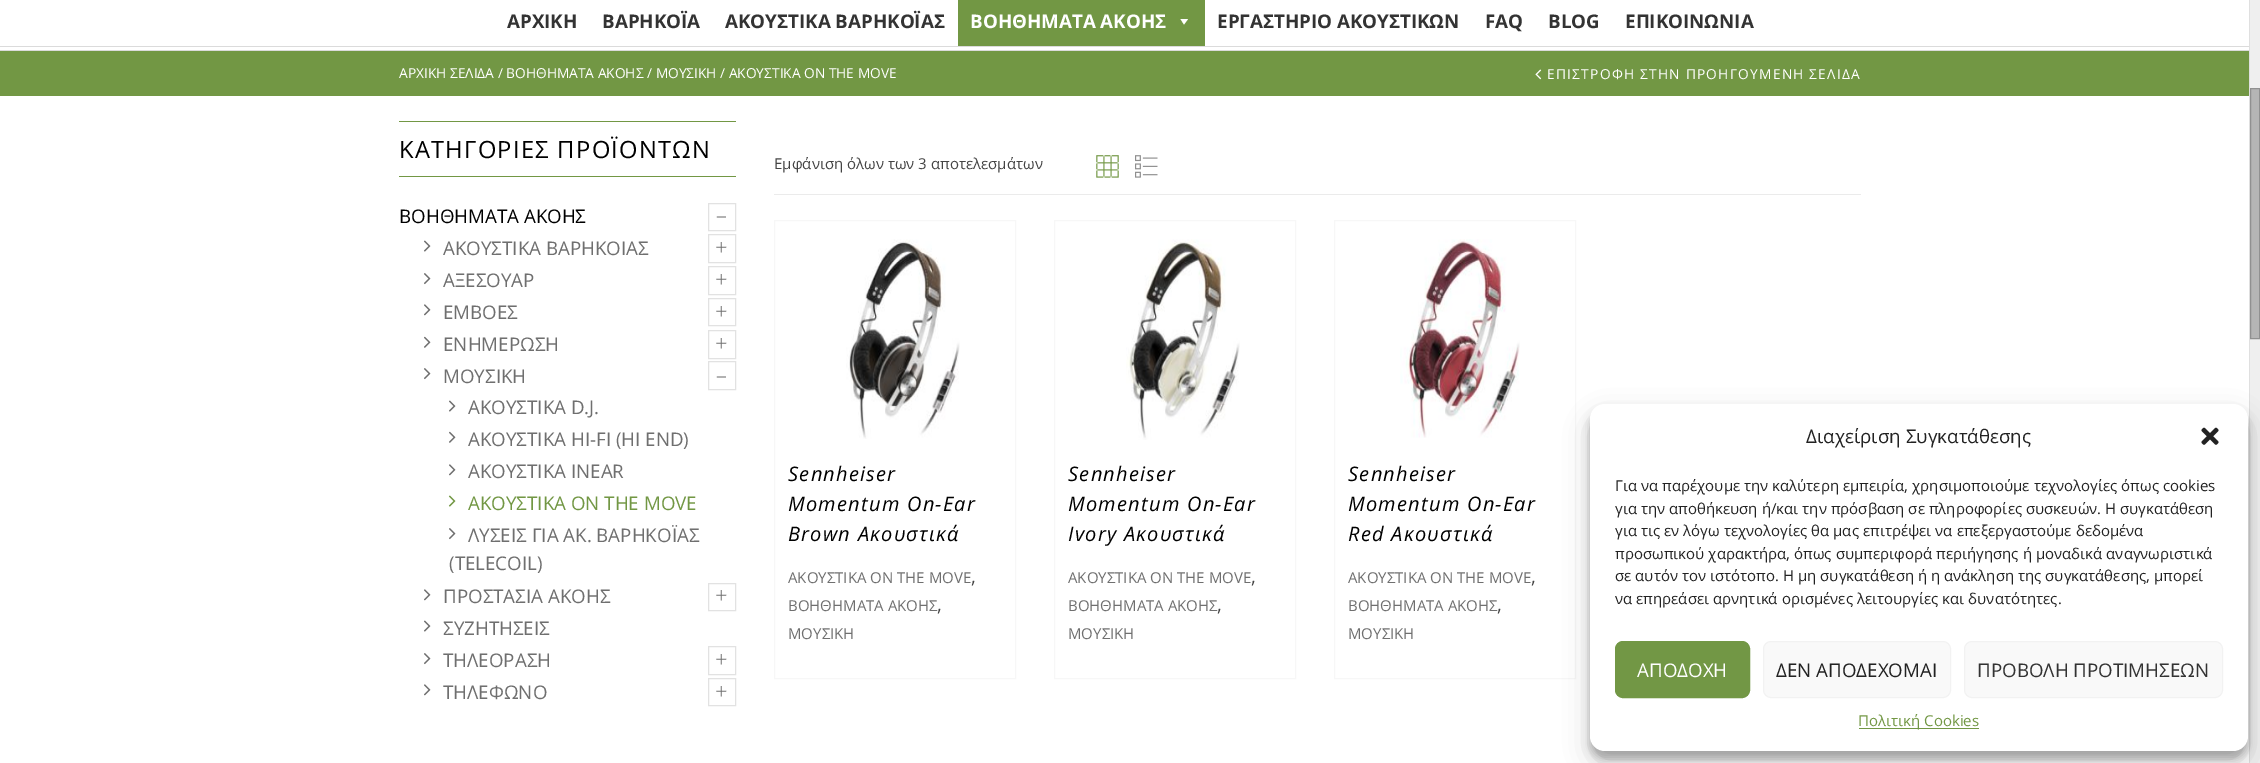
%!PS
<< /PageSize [2260 763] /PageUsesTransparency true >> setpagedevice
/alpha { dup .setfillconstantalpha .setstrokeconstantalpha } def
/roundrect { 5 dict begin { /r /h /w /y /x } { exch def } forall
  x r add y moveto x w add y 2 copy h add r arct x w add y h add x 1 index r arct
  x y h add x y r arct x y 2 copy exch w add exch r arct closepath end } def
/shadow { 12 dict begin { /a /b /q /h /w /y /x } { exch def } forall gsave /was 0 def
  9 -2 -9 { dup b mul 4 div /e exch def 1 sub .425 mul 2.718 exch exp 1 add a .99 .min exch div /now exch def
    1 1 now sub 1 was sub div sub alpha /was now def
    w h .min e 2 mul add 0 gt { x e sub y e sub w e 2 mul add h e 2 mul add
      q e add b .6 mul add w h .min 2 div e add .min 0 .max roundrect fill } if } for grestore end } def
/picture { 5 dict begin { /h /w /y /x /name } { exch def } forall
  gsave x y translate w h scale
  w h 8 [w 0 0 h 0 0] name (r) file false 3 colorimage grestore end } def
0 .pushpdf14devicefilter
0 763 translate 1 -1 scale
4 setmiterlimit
1 setgray
0 0 2260 763 rectfill
0.859 setgray
0 50 2249 1 rectfill
0 46 2249 1 rectfill
/OpenSans-Bold [18.75 0 0 -18.75 0 0] selectfont
0.2 setgray
507 28 moveto (ΑΡΧΙΚΗ) show
602 28 moveto (ΒΑΡΗΚΟΪΑ) show
725 28 moveto (ΑΚΟΥΣΤΙΚΑ ΒΑΡΗΚΟΪΑΣ) show
0.447 0.592 0.267 setrgbcolor
958 0 247 46 rectfill
1 setgray
970 28 moveto (ΒΟΗΘΗΜΑΤΑ ΑΚΟΗΣ) show
newpath 1188 19 moveto 1184 24.5 lineto 1180.5 19 lineto closepath fill
0.2 setgray
1217 28 moveto (ΕΡΓΑΣΤΗΡΙΟ ΑΚΟΥΣΤΙΚΩΝ) show
1485 28 moveto (FAQ) show
1548 28 moveto (BLOG) show
1625 28 moveto (ΕΠΙΚΟΙΝΩΝΙΑ) show
0.447 0.592 0.267 setrgbcolor
0 51 2249 45 rectfill
/OpenSans-Regular [13.75 0 0 -13.75 0 0] selectfont
1 setgray
399 78 moveto (ΑΡΧΙΚΗ ΣΕΛΙΔΑ / ΒΟΗΘΗΜΑΤΑ ΑΚΟΗΣ / ΜΟΥΣΙΚΗ / ΑΚΟΥΣΤΙΚΑ ON THE MOVE) show
(img1.rgb) 1535 69 7 11 picture
1547 79 moveto 1.25 0 (ΕΠΙΣΤΡΟΦΗ ΣΤΗΝ ΠΡΟΗΓΟΥΜΕΝΗ ΣΕΛΙΔΑ) ashow
0.447 0.592 0.267 setrgbcolor
399 121 337 1 rectfill
399 176 337 1 rectfill
/OpenSans-Regular [23.75 0 0 -23.75 0 0] selectfont
0 setgray
399 158 moveto 1.25 0 (ΚΑΤΗΓΟΡΙΕΣ ΠΡΟΪΟΝΤΩΝ) ashow
/OpenSans-Regular [18.75 0 0 -18.75 0 0] selectfont
399 223 moveto (ΒΟΗΘΗΜΑΤΑ ΑΚΟΗΣ) show
0.886 setgray
708.5 203.5 27 27 rectstroke
/OpenSans-Light [22 0 0 -22 0 0] selectfont
0.435 setgray
716 223 moveto (–) show
(img2.rgb) 424 240 7 12 picture
/OpenSans-Regular [18.75 0 0 -18.75 0 0] selectfont
443 255 moveto (ΑΚΟΥΣΤΙΚΑ ΒΑΡΗΚΟΙΑΣ) show
0.886 setgray
708.5 234.5 27 28 rectstroke
/OpenSans-Light [22 0 0 -22 0 0] selectfont
0.435 setgray
715 255 moveto (+) show
(img3.rgb) 424 273 7 12 picture
/OpenSans-Regular [18.75 0 0 -18.75 0 0] selectfont
443 287 moveto (ΑΞΕΣΟΥΑΡ) show
0.886 setgray
708.5 266.5 27 28 rectstroke
/OpenSans-Light [22 0 0 -22 0 0] selectfont
0.435 setgray
715 287 moveto (+) show
(img4.rgb) 424 304 7 12 picture
/OpenSans-Regular [18.75 0 0 -18.75 0 0] selectfont
443 319 moveto (ΕΜΒΟΕΣ) show
0.886 setgray
708.5 298.5 27 27 rectstroke
/OpenSans-Light [22 0 0 -22 0 0] selectfont
0.435 setgray
715 319 moveto (+) show
(img5.rgb) 424 336 7 12 picture
/OpenSans-Regular [18.75 0 0 -18.75 0 0] selectfont
443 351 moveto (ΕΝΗΜΕΡΩΣΗ) show
0.886 setgray
708.5 330.5 27 28 rectstroke
/OpenSans-Light [22 0 0 -22 0 0] selectfont
0.435 setgray
715 351 moveto (+) show
(img3.rgb) 424 368 7 12 picture
/OpenSans-Regular [18.75 0 0 -18.75 0 0] selectfont
443 383 moveto (ΜΟΥΣΙΚΗ) show
0.886 setgray
708.5 361.5 27 28 rectstroke
/OpenSans-Light [22 0 0 -22 0 0] selectfont
0.435 setgray
716 383 moveto (–) show
(img2.rgb) 449 400 7 12 picture
/OpenSans-Regular [18.75 0 0 -18.75 0 0] selectfont
468 414 moveto (ΑΚΟΥΣΤΙΚΑ D.J.) show
(img5.rgb) 449 431 7 12 picture
468 446 moveto (ΑΚΟΥΣΤΙΚΑ HI-FI \(HI END\)) show
(img4.rgb) 449 464 7 12 picture
468 478 moveto (ΑΚΟΥΣΤΙΚΑ INEAR) show
(img6.rgb) 448 495 8 12 picture
0.447 0.592 0.267 setrgbcolor
468 510 moveto (ΑΚΟΥΣΤΙΚΑ ON THE MOVE) show
(img3.rgb) 449 528 7 12 picture
0.435 setgray
468 542 moveto (ΛΥΣΕΙΣ ΓΙΑ ΑΚ. ΒΑΡΗΚΟΪΑΣ) show
449 570 moveto (\(TELECOIL\)) show
(img4.rgb) 424 589 7 12 picture
443 603 moveto (ΠΡΟΣΤΑΣΙΑ ΑΚΟΗΣ) show
0.886 setgray
708.5 583.5 27 27 rectstroke
/OpenSans-Light [22 0 0 -22 0 0] selectfont
0.435 setgray
715 603 moveto (+) show
(img2.rgb) 424 620 7 12 picture
/OpenSans-Regular [18.75 0 0 -18.75 0 0] selectfont
443 635 moveto (ΣΥΖΗΤΗΣΕΙΣ) show
(img3.rgb) 424 653 7 12 picture
443 667 moveto (ΤΗΛΕΟΡΑΣΗ) show
0.886 setgray
708.5 646.5 27 28 rectstroke
/OpenSans-Light [22 0 0 -22 0 0] selectfont
0.435 setgray
715 667 moveto (+) show
(img4.rgb) 424 684 7 12 picture
/OpenSans-Regular [18.75 0 0 -18.75 0 0] selectfont
443 699 moveto (ΤΗΛΕΦΩΝO) show
0.886 setgray
708.5 678.5 27 27 rectstroke
/OpenSans-Light [22 0 0 -22 0 0] selectfont
0.435 setgray
715 699 moveto (+) show
0.922 setgray
774 194 1087 1 rectfill
/OpenSans-Regular [15 0 0 -15 0 0] selectfont
0.267 setgray
774 169 moveto (Εμφάνιση όλων των 3 αποτελεσμάτων) show
(img7.rgb) 1096 155 23 23 picture
(img8.rgb) 1135 155 23 23 picture
0.969 setgray
774.5 220.5 241 458 rectstroke
(img9.rgb) 846 239 114 200 picture
/OpenSans-Italic [20 0 0 -20 0 0] selectfont
0 setgray
788 481 moveto 1.25 0 (Sennheiser) ashow
788 511 moveto 1.25 0 (Momentum On-Ear) ashow
788 541 moveto 1.25 0 (Brown Ακουστικά) ashow
/OpenSans-Regular [15 0 0 -15 0 0] selectfont
0.435 setgray
788 583 moveto (ΑΚΟΥΣΤΙΚΑ ON THE MOVE) show
/OpenSans-Regular [18.75 0 0 -18.75 0 0] selectfont
0.267 setgray
971 583 moveto (,) show
/OpenSans-Regular [15 0 0 -15 0 0] selectfont
0.435 setgray
788 611 moveto (ΒΟΗΘΗΜΑΤΑ ΑΚΟΗΣ) show
/OpenSans-Regular [18.75 0 0 -18.75 0 0] selectfont
0.267 setgray
937 611 moveto (,) show
/OpenSans-Regular [15 0 0 -15 0 0] selectfont
0.435 setgray
788 639 moveto (ΜΟΥΣΙΚΗ) show
0.969 setgray
1054.5 220.5 241 458 rectstroke
(img10.rgb) 1126 239 114 201 picture
/OpenSans-Italic [20 0 0 -20 0 0] selectfont
0 setgray
1068 481 moveto 1.25 0 (Sennheiser) ashow
1068 511 moveto 1.25 0 (Momentum On-Ear) ashow
1068 541 moveto 1.25 0 (Ivory Ακουστικά) ashow
/OpenSans-Regular [15 0 0 -15 0 0] selectfont
0.435 setgray
1068 583 moveto (ΑΚΟΥΣΤΙΚΑ ON THE MOVE) show
/OpenSans-Regular [18.75 0 0 -18.75 0 0] selectfont
0.267 setgray
1251 583 moveto (,) show
/OpenSans-Regular [15 0 0 -15 0 0] selectfont
0.435 setgray
1068 611 moveto (ΒΟΗΘΗΜΑΤΑ ΑΚΟΗΣ) show
/OpenSans-Regular [18.75 0 0 -18.75 0 0] selectfont
0.267 setgray
1217 611 moveto (,) show
/OpenSans-Regular [15 0 0 -15 0 0] selectfont
0.435 setgray
1068 639 moveto (ΜΟΥΣΙΚΗ) show
0.969 setgray
1334.5 220.5 241 458 rectstroke
(img11.rgb) 1400 239 120 199 picture
/OpenSans-Italic [20 0 0 -20 0 0] selectfont
0 setgray
1348 481 moveto 1.25 0 (Sennheiser) ashow
1348 511 moveto 1.25 0 (Momentum On-Ear) ashow
1348 541 moveto 1.25 0 (Red Ακουστικά) ashow
/OpenSans-Regular [15 0 0 -15 0 0] selectfont
0.435 setgray
1348 583 moveto (ΑΚΟΥΣΤΙΚΑ ON THE MOVE) show
/OpenSans-Regular [18.75 0 0 -18.75 0 0] selectfont
0.267 setgray
1531 583 moveto (,) show
/OpenSans-Regular [15 0 0 -15 0 0] selectfont
0.435 setgray
1348 611 moveto (ΒΟΗΘΗΜΑΤΑ ΑΚΟΗΣ) show
/OpenSans-Regular [18.75 0 0 -18.75 0 0] selectfont
0.267 setgray
1497 611 moveto (,) show
/OpenSans-Regular [15 0 0 -15 0 0] selectfont
0.435 setgray
1348 639 moveto (ΜΟΥΣΙΚΗ) show
0.937 setgray
2250 0 10 763 rectfill
0.875 setgray
2249 0 1 763 rectfill
0 setgray
1590 411 658 348 15 4 0.23 shadow
1590 416 658 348 15 12.5 0.19 shadow
1 setgray
1590 404 658 347 15 roundrect fill
/OpenSans-Regular [18.75 0 0 -18.75 0 0] selectfont
0.133 setgray
1806 443 moveto (Διαχείριση Συγκατάθεσης) show
(img12.rgb) 2201 427 18 18 picture
/OpenSans-Regular [15 0 0 -15 0 0] selectfont
1615 491 moveto (Για να παρέχουμε την καλύτερη εμπειρία, χρησιμοποιούμε τεχνολογίες όπως cookies) show
1615 514 moveto (για την αποθήκευση ή/και την πρόσβαση σε πληροφορίες συσκευών. Η συγκατάθεση) show
1615 536 moveto (για τις εν λόγω τεχνολογίες θα μας επιτρέψει να επεξεργαστούμε δεδομένα) show
1615 559 moveto (προσωπικού χαρακτήρα, όπως συμπεριφορά περιήγησης ή μοναδικά αναγνωριστικά) show
1615 581 moveto (σε αυτόν τον ιστότοπο. Η μη συγκατάθεση ή η ανάκληση της συγκατάθεσης, μπορεί) show
1615 604 moveto (να επηρεάσει αρνητικά ορισμένες λειτουργίες και δυνατότητες.) show
0.447 0.592 0.271 setrgbcolor
1615.5 641.5 134 56 7.5 roundrect gsave fill grestore
stroke
/OpenSans-Regular [18.75 0 0 -18.75 0 0] selectfont
1 setgray
1637 677 moveto (ΑΠΟΔΟΧΗ) show
0.976 setgray
1763.5 641.5 187 56 7.5 roundrect gsave fill grestore
0.949 setgray
stroke
0.133 setgray
1776 677 moveto (ΔΕΝ ΑΠΟΔΕΧΟΜΑΙ) show
0.976 setgray
1964.5 641.5 258 56 7.5 roundrect gsave fill grestore
0.949 setgray
stroke
0.2 setgray
1977 677 moveto (ΠΡΟΒΟΛΗ ΠΡΟΤΙΜΗΣΕΩΝ) show
0.447 0.592 0.271 setrgbcolor
1859 728 120 1 rectfill
/OpenSans-Regular [15 0 0 -15 0 0] selectfont
0.447 0.592 0.267 setrgbcolor
1858 726 moveto (Πολιτική Cookies) show
0.71 setgray
newpath 2250.5 88.5 moveto 2259.5 88.5 lineto 2259.5 338.5 lineto 2250.5 338.5 lineto closepath gsave fill grestore
0.565 setgray
stroke
.poppdf14devicefilter showpage
